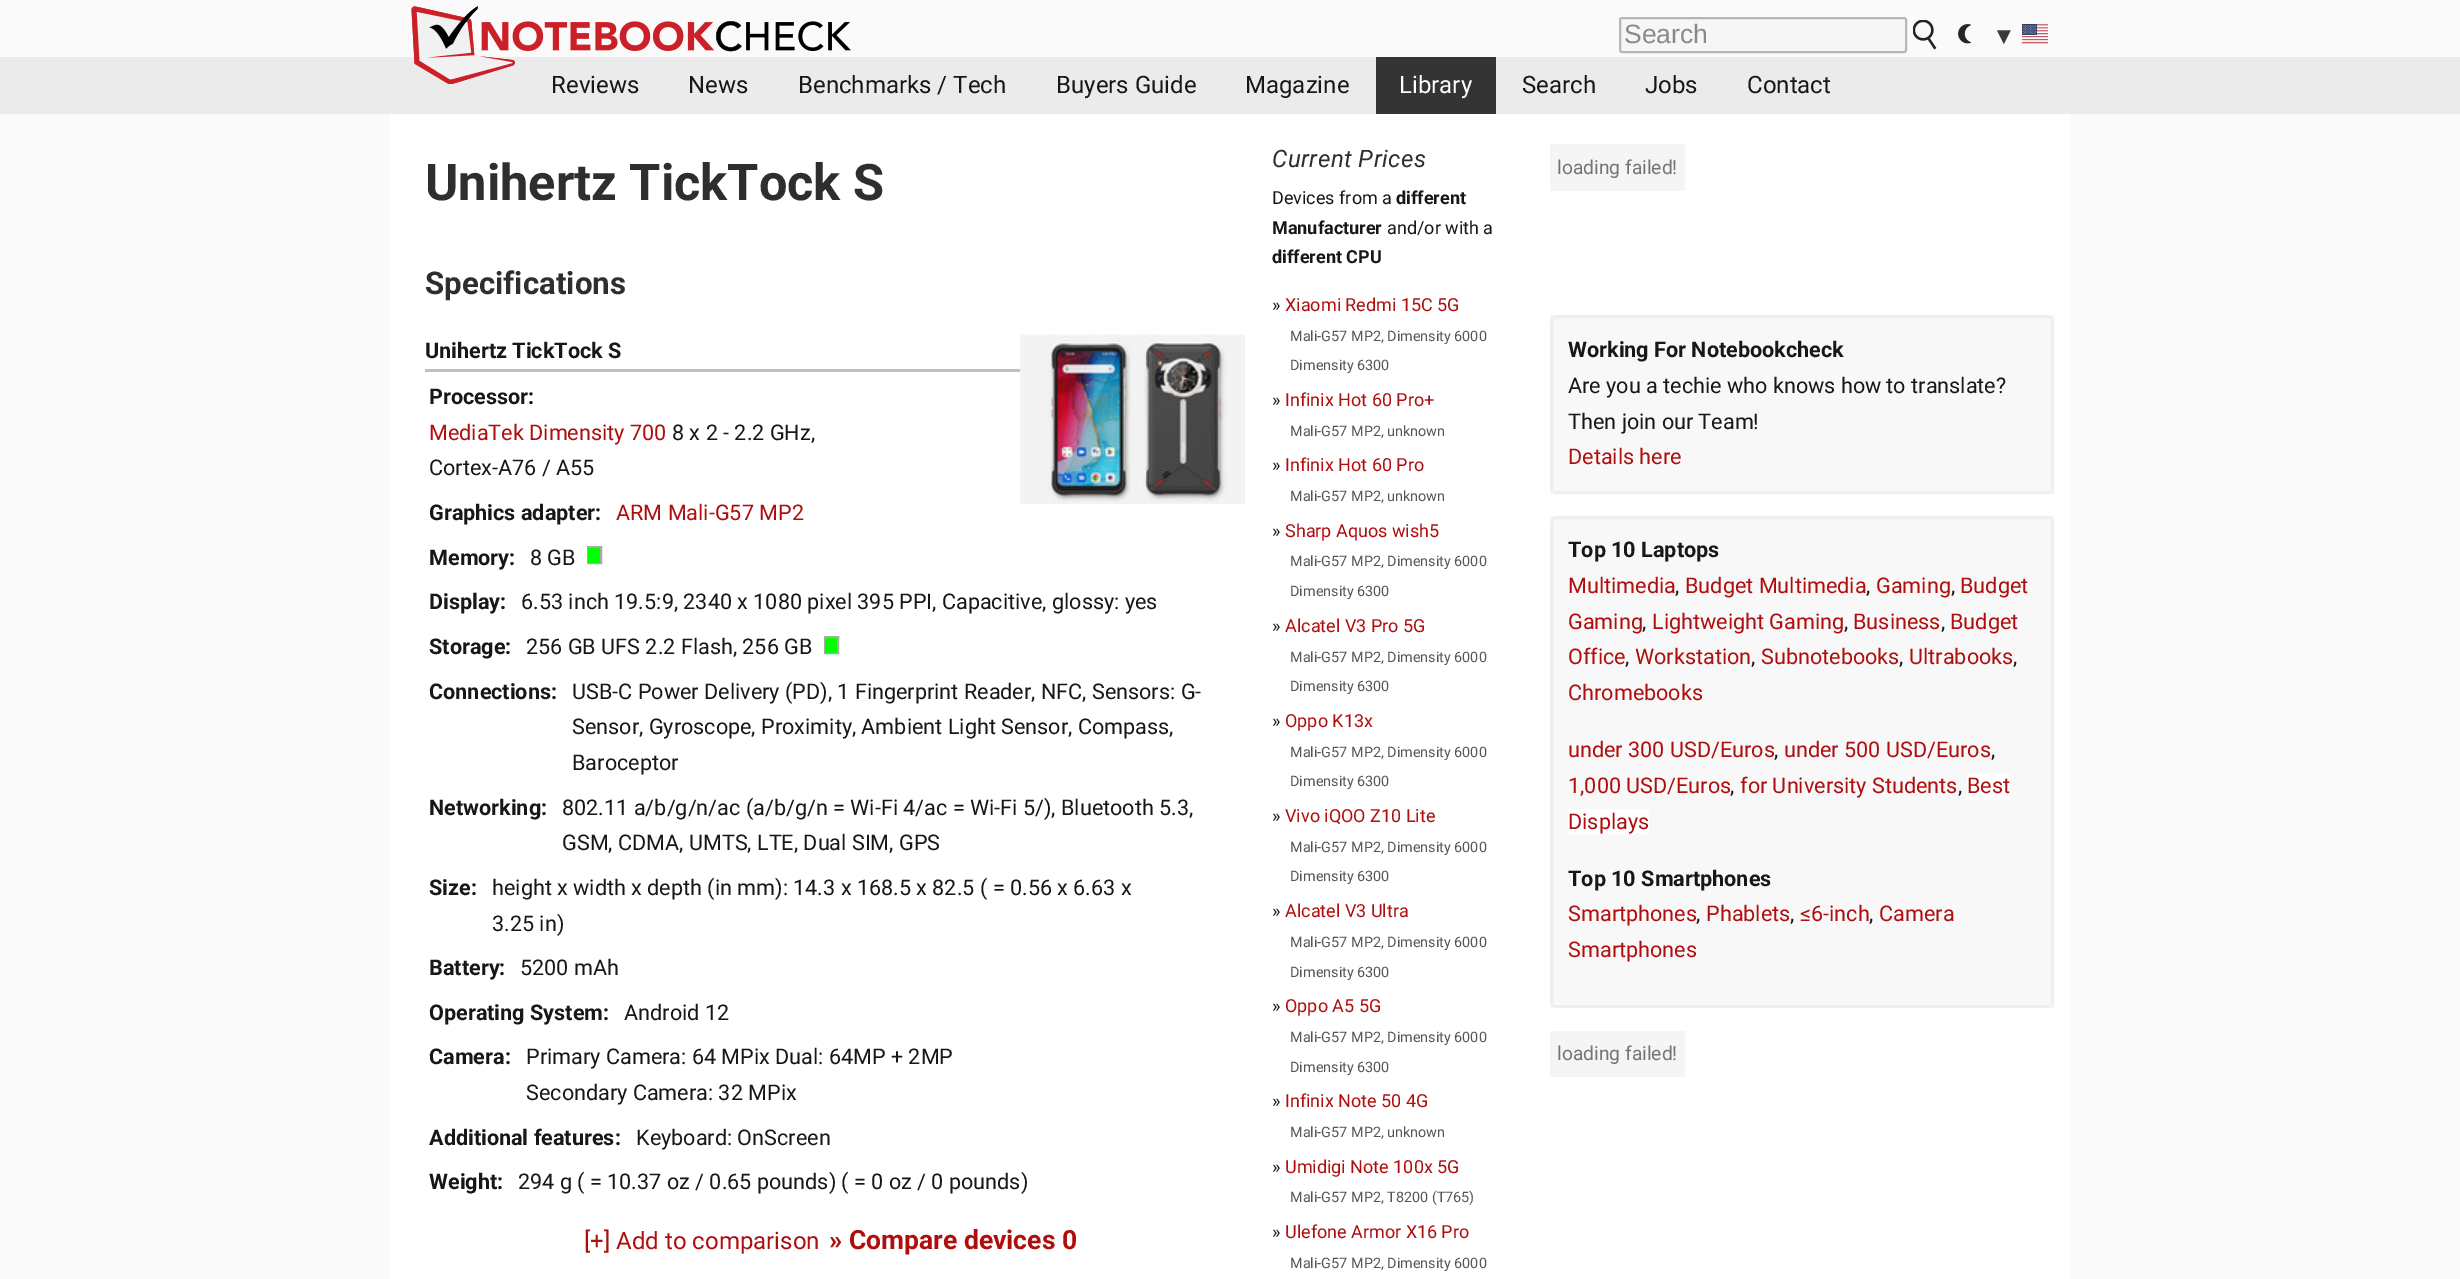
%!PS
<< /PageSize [2460 1279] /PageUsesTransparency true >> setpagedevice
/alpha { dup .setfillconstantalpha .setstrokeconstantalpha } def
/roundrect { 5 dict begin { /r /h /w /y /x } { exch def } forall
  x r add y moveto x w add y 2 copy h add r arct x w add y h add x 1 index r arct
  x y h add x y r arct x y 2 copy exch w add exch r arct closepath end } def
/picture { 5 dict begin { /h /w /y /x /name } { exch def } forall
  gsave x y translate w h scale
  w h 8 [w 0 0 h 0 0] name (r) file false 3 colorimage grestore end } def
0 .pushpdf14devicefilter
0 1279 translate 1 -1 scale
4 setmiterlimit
0.98 setgray
0 0 2460 1279 rectfill
(img1.rgb) 411 6 440 78 picture
0.06 alpha
0 setgray
0 57 2460 57 rectfill
1 alpha
(img2.rgb) 411 6 104 78 picture
0.965 setgray
1620 18 286 34 2 roundrect gsave fill grestore
0.714 setgray
2 setlinewidth
stroke
/LiberationSans-Regular [26.5 0 0 -26.5 0 0] selectfont
0.537 setgray
1624 43 moveto (Search) show
(img3.rgb) 1913 20 24 30 picture
(img4.rgb) 1958 24 13 20 picture
/LiberationSans-Regular [24 0 0 -24 0 0] selectfont
0.224 setgray
1992 44 moveto (▼) show
(img5.rgb) 2022 24 26 20 picture
/Roboto-Regular [24 0 0 -24 0 0] selectfont
0.09 setgray
551 93 moveto (Reviews) show
688 93 moveto (News) show
798 93 moveto (Benchmarks / Tech) show
1056 93 moveto (Buyers Guide) show
1245 93 moveto (Magazine) show
0.204 setgray
1376 57 120 57 rectfill
1 setgray
1399 93 moveto (Library) show
0.09 setgray
1522 93 moveto (Search) show
1645 93 moveto (Jobs) show
1747 93 moveto (Contact) show
1 setgray
390 114 1680 1165 rectfill
/Roboto-Bold [50.5 0 0 -50.5 0 0] selectfont
0.18 setgray
425 200 moveto (Unihertz TickTock S) show
/Roboto-Bold [31.25 0 0 -31.25 0 0] selectfont
425 294 moveto (Specifications) show
(img6.rgb) 1020 334 225 170 picture
0.749 setgray
425 369 595 3 rectfill
/Roboto-Bold [21.6 0 0 -21.6 0 0] selectfont
0.09 setgray
425 358 moveto (Unihertz TickTock S) show
429 404 moveto (Processor:) show
/Roboto-Regular [21.6 0 0 -21.6 0 0] selectfont
0.686 0.055 0.055 setrgbcolor
429 440 moveto (MediaTek Dimensity 700) show
0.09 setgray
672 440 moveto (8 x 2 - 2.2 GHz,) show
429 475 moveto (Cortex-A76 / A55) show
/Roboto-Bold [21.6 0 0 -21.6 0 0] selectfont
429 520 moveto (Graphics adapter:) show
/Roboto-Regular [21.6 0 0 -21.6 0 0] selectfont
0.686 0.055 0.055 setrgbcolor
616 520 moveto (ARM Mali-G57 MP2) show
/Roboto-Bold [21.6 0 0 -21.6 0 0] selectfont
0.09 setgray
429 565 moveto (Memory:) show
/Roboto-Regular [21.6 0 0 -21.6 0 0] selectfont
530 565 moveto (8 GB) show
0.667 setgray
588 547 13 16 rectstroke
0 1 0 setrgbcolor
588 548 12 15 rectfill
/Roboto-Bold [21.6 0 0 -21.6 0 0] selectfont
0.09 setgray
429 609 moveto (Display:) show
/Roboto-Regular [21.6 0 0 -21.6 0 0] selectfont
521 609 moveto (6.53 inch 19.5:9, 2340 x 1080 pixel 395 PPI, Capacitive, glossy: yes) show
/Roboto-Bold [21.6 0 0 -21.6 0 0] selectfont
429 654 moveto (Storage:) show
/Roboto-Regular [21.6 0 0 -21.6 0 0] selectfont
526 654 moveto (256 GB UFS 2.2 Flash, 256 GB) show
0.667 setgray
825 637 13 16 rectstroke
0 1 0 setrgbcolor
825 638 12 15 rectfill
/Roboto-Bold [21.6 0 0 -21.6 0 0] selectfont
0.09 setgray
429 699 moveto (Connections:) show
/Roboto-Regular [21.6 0 0 -21.6 0 0] selectfont
572 699 moveto (USB-C Power Delivery \(PD\), 1 Fingerprint Reader, NFC, Sensors: G-) show
572 734 moveto (Sensor, Gyroscope, Proximity, Ambient Light Sensor, Compass,) show
572 770 moveto (Baroceptor) show
/Roboto-Bold [21.6 0 0 -21.6 0 0] selectfont
429 815 moveto (Networking:) show
/Roboto-Regular [21.6 0 0 -21.6 0 0] selectfont
562 815 moveto (802.11 a/b/g/n/ac \(a/b/g/n = Wi-Fi 4/ac = Wi-Fi 5/\), Bluetooth 5.3,) show
562 850 moveto (GSM, CDMA, UMTS, LTE, Dual SIM, GPS) show
/Roboto-Bold [21.6 0 0 -21.6 0 0] selectfont
429 895 moveto (Size:) show
/Roboto-Regular [21.6 0 0 -21.6 0 0] selectfont
492 895 moveto (height x width x depth \(in mm\): 14.3 x 168.5 x 82.5 \( = 0.56 x 6.63 x) show
492 931 moveto (3.25 in\)) show
/Roboto-Bold [21.6 0 0 -21.6 0 0] selectfont
429 975 moveto (Battery:) show
/Roboto-Regular [21.6 0 0 -21.6 0 0] selectfont
520 975 moveto (5200 mAh) show
/Roboto-Bold [21.6 0 0 -21.6 0 0] selectfont
429 1020 moveto (Operating System:) show
/Roboto-Regular [21.6 0 0 -21.6 0 0] selectfont
624 1020 moveto (Android 12) show
/Roboto-Bold [21.6 0 0 -21.6 0 0] selectfont
429 1064 moveto (Camera:) show
/Roboto-Regular [21.6 0 0 -21.6 0 0] selectfont
526 1064 moveto (Primary Camera: 64 MPix Dual: 64MP + 2MP) show
526 1100 moveto (Secondary Camera: 32 MPix) show
/Roboto-Bold [21.6 0 0 -21.6 0 0] selectfont
429 1145 moveto (Additional features:) show
/Roboto-Regular [21.6 0 0 -21.6 0 0] selectfont
636 1145 moveto (Keyboard: OnScreen) show
/Roboto-Bold [21.6 0 0 -21.6 0 0] selectfont
429 1189 moveto (Weight:) show
/Roboto-Regular [21.6 0 0 -21.6 0 0] selectfont
518 1189 moveto (294 g \( = 10.37 oz / 0.65 pounds\) \( = 0 oz / 0 pounds\)) show
/Roboto-Regular [24 0 0 -24 0 0] selectfont
0.686 0.055 0.055 setrgbcolor
584 1249 moveto ([+] Add to comparison) show
/Roboto-Bold [26.5 0 0 -26.5 0 0] selectfont
829 1249 moveto (» Compare devices 0) show
/Roboto-Italic [24 0 0 -24 0 0] selectfont
0.18 setgray
1272 167 moveto 0.5 0 (Current Prices) ashow
/Roboto-Regular [18 0 0 -18 0 0] selectfont
0.09 setgray
1272 204 moveto (Devices from a) show
/Roboto-Bold [18 0 0 -18 0 0] selectfont
1396 204 moveto (different) show
1272 234 moveto (Manufacturer) show
/Roboto-Regular [18 0 0 -18 0 0] selectfont
1387 234 moveto (and/or with a) show
/Roboto-Bold [18 0 0 -18 0 0] selectfont
1272 263 moveto (different CPU) show
/Roboto-Regular [18 0 0 -18 0 0] selectfont
1272 311 moveto (») show
0.686 0.055 0.055 setrgbcolor
1285 311 moveto (Xiaomi Redmi 15C 5G) show
/Roboto-Regular [14.4 0 0 -14.4 0 0] selectfont
0.333 setgray
1290 341 moveto (Mali-G57 MP2, Dimensity 6000) show
1290 370 moveto (Dimensity 6300) show
/Roboto-Regular [18 0 0 -18 0 0] selectfont
0.09 setgray
1272 406 moveto (») show
0.686 0.055 0.055 setrgbcolor
1285 406 moveto (Infinix Hot 60 Pro+) show
/Roboto-Regular [14.4 0 0 -14.4 0 0] selectfont
0.333 setgray
1290 436 moveto (Mali-G57 MP2, unknown) show
/Roboto-Regular [18 0 0 -18 0 0] selectfont
0.09 setgray
1272 471 moveto (») show
0.686 0.055 0.055 setrgbcolor
1285 471 moveto (Infinix Hot 60 Pro) show
/Roboto-Regular [14.4 0 0 -14.4 0 0] selectfont
0.333 setgray
1290 501 moveto (Mali-G57 MP2, unknown) show
/Roboto-Regular [18 0 0 -18 0 0] selectfont
0.09 setgray
1272 537 moveto (») show
0.686 0.055 0.055 setrgbcolor
1285 537 moveto (Sharp Aquos wish5) show
/Roboto-Regular [14.4 0 0 -14.4 0 0] selectfont
0.333 setgray
1290 566 moveto (Mali-G57 MP2, Dimensity 6000) show
1290 596 moveto (Dimensity 6300) show
/Roboto-Regular [18 0 0 -18 0 0] selectfont
0.09 setgray
1272 632 moveto (») show
0.686 0.055 0.055 setrgbcolor
1285 632 moveto (Alcatel V3 Pro 5G) show
/Roboto-Regular [14.4 0 0 -14.4 0 0] selectfont
0.333 setgray
1290 662 moveto (Mali-G57 MP2, Dimensity 6000) show
1290 691 moveto (Dimensity 6300) show
/Roboto-Regular [18 0 0 -18 0 0] selectfont
0.09 setgray
1272 727 moveto (») show
0.686 0.055 0.055 setrgbcolor
1285 727 moveto (Oppo K13x) show
/Roboto-Regular [14.4 0 0 -14.4 0 0] selectfont
0.333 setgray
1290 757 moveto (Mali-G57 MP2, Dimensity 6000) show
1290 786 moveto (Dimensity 6300) show
/Roboto-Regular [18 0 0 -18 0 0] selectfont
0.09 setgray
1272 822 moveto (») show
0.686 0.055 0.055 setrgbcolor
1285 822 moveto (Vivo iQOO Z10 Lite) show
/Roboto-Regular [14.4 0 0 -14.4 0 0] selectfont
0.333 setgray
1290 852 moveto (Mali-G57 MP2, Dimensity 6000) show
1290 881 moveto (Dimensity 6300) show
/Roboto-Regular [18 0 0 -18 0 0] selectfont
0.09 setgray
1272 917 moveto (») show
0.686 0.055 0.055 setrgbcolor
1285 917 moveto (Alcatel V3 Ultra) show
/Roboto-Regular [14.4 0 0 -14.4 0 0] selectfont
0.333 setgray
1290 947 moveto (Mali-G57 MP2, Dimensity 6000) show
1290 977 moveto (Dimensity 6300) show
/Roboto-Regular [18 0 0 -18 0 0] selectfont
0.09 setgray
1272 1012 moveto (») show
0.686 0.055 0.055 setrgbcolor
1285 1012 moveto (Oppo A5 5G) show
/Roboto-Regular [14.4 0 0 -14.4 0 0] selectfont
0.333 setgray
1290 1042 moveto (Mali-G57 MP2, Dimensity 6000) show
1290 1072 moveto (Dimensity 6300) show
/Roboto-Regular [18 0 0 -18 0 0] selectfont
0.09 setgray
1272 1107 moveto (») show
0.686 0.055 0.055 setrgbcolor
1285 1107 moveto (Infinix Note 50 4G) show
/Roboto-Regular [14.4 0 0 -14.4 0 0] selectfont
0.333 setgray
1290 1137 moveto (Mali-G57 MP2, unknown) show
/Roboto-Regular [18 0 0 -18 0 0] selectfont
0.09 setgray
1272 1173 moveto (») show
0.686 0.055 0.055 setrgbcolor
1285 1173 moveto (Umidigi Note 100x 5G) show
/Roboto-Regular [14.4 0 0 -14.4 0 0] selectfont
0.333 setgray
1290 1202 moveto (Mali-G57 MP2, T8200 \(T765\)) show
/Roboto-Regular [18 0 0 -18 0 0] selectfont
0.09 setgray
1272 1238 moveto (») show
0.686 0.055 0.055 setrgbcolor
1285 1238 moveto (Ulefone Armor X16 Pro) show
/Roboto-Regular [14.4 0 0 -14.4 0 0] selectfont
0.333 setgray
1290 1268 moveto (Mali-G57 MP2, Dimensity 6000) show
0.961 setgray
1550 144 135 47 rectfill
/Roboto-Regular [19.25 0 0 -19.25 0 0] selectfont
0.455 setgray
1557 174 moveto (loading failed!) show
0.973 setgray
1550 315 504 179 8 roundrect fill
0.04 alpha
0 setgray
3 setlinewidth
1551.5 316.5 501 176 rectstroke
/Roboto-Bold [21.6 0 0 -21.6 0 0] selectfont
1 alpha
0.09 setgray
1568 357 moveto (Working For Notebookcheck) show
/Roboto-Regular [21.6 0 0 -21.6 0 0] selectfont
1568 393 moveto (Are you a techie who knows how to translate?) show
1568 429 moveto (Then join our Team!) show
0.686 0.055 0.055 setrgbcolor
1568 464 moveto (Details here) show
0.973 setgray
1550 516 504 492 8 roundrect fill
0.04 alpha
0 setgray
1551.5 517.5 501 489 rectstroke
/Roboto-Bold [21.6 0 0 -21.6 0 0] selectfont
1 alpha
0.09 setgray
1568 557 moveto (Top 10 Laptops) show
/Roboto-Regular [21.6 0 0 -21.6 0 0] selectfont
0.686 0.055 0.055 setrgbcolor
1568 593 moveto (Multimedia) show
0.09 setgray
1675 593 moveto (,) show
0.686 0.055 0.055 setrgbcolor
1685 593 moveto (Budget Multimedia) show
0.09 setgray
1866 593 moveto (,) show
0.686 0.055 0.055 setrgbcolor
1876 593 moveto (Gaming) show
0.09 setgray
1951 593 moveto (,) show
0.686 0.055 0.055 setrgbcolor
1960 593 moveto (Budget) show
1568 629 moveto (Gaming) show
0.09 setgray
1642 629 moveto (,) show
0.686 0.055 0.055 setrgbcolor
1652 629 moveto (Lightweight Gaming) show
0.09 setgray
1844 629 moveto (,) show
0.686 0.055 0.055 setrgbcolor
1853 629 moveto (Business) show
0.09 setgray
1941 629 moveto (,) show
0.686 0.055 0.055 setrgbcolor
1950 629 moveto (Budget) show
1568 664 moveto (Office) show
0.09 setgray
1625 664 moveto (,) show
0.686 0.055 0.055 setrgbcolor
1635 664 moveto (Workstation) show
0.09 setgray
1751 664 moveto (,) show
0.686 0.055 0.055 setrgbcolor
1761 664 moveto (Subnotebooks) show
0.09 setgray
1899 664 moveto (,) show
0.686 0.055 0.055 setrgbcolor
1909 664 moveto (Ultrabooks) show
0.09 setgray
2013 664 moveto (,) show
0.686 0.055 0.055 setrgbcolor
1568 700 moveto (Chromebooks) show
1568 757 moveto (under 300 USD/Euros) show
0.09 setgray
1774 757 moveto (,) show
0.686 0.055 0.055 setrgbcolor
1784 757 moveto (under 500 USD/Euros) show
0.09 setgray
1991 757 moveto (,) show
0.686 0.055 0.055 setrgbcolor
1568 793 moveto (1,000 USD/Euros) show
0.09 setgray
1730 793 moveto (,) show
0.686 0.055 0.055 setrgbcolor
1740 793 moveto (for University Students) show
0.09 setgray
1958 793 moveto (,) show
1 setgray
1967 774 43 26 rectfill
0.686 0.055 0.055 setrgbcolor
1967 793 moveto (Best) show
1 setgray
1568 809 81 25 rectfill
0.686 0.055 0.055 setrgbcolor
1568 829 moveto (Displays) show
/Roboto-Bold [21.6 0 0 -21.6 0 0] selectfont
0.09 setgray
1568 886 moveto (Top 10 Smartphones) show
/Roboto-Regular [21.6 0 0 -21.6 0 0] selectfont
0.686 0.055 0.055 setrgbcolor
1568 921 moveto (Smartphones) show
0.09 setgray
1696 921 moveto (,) show
0.686 0.055 0.055 setrgbcolor
1706 921 moveto (Phablets) show
0.09 setgray
1790 921 moveto (,) show
0.686 0.055 0.055 setrgbcolor
1800 921 moveto (≤6-inch) show
0.09 setgray
1869 921 moveto (,) show
0.686 0.055 0.055 setrgbcolor
1879 921 moveto (Camera) show
1568 957 moveto (Smartphones) show
0.961 setgray
1550 1031 135 46 rectfill
/Roboto-Regular [19.25 0 0 -19.25 0 0] selectfont
0.455 setgray
1557 1060 moveto (loading failed!) show
.poppdf14devicefilter showpage
